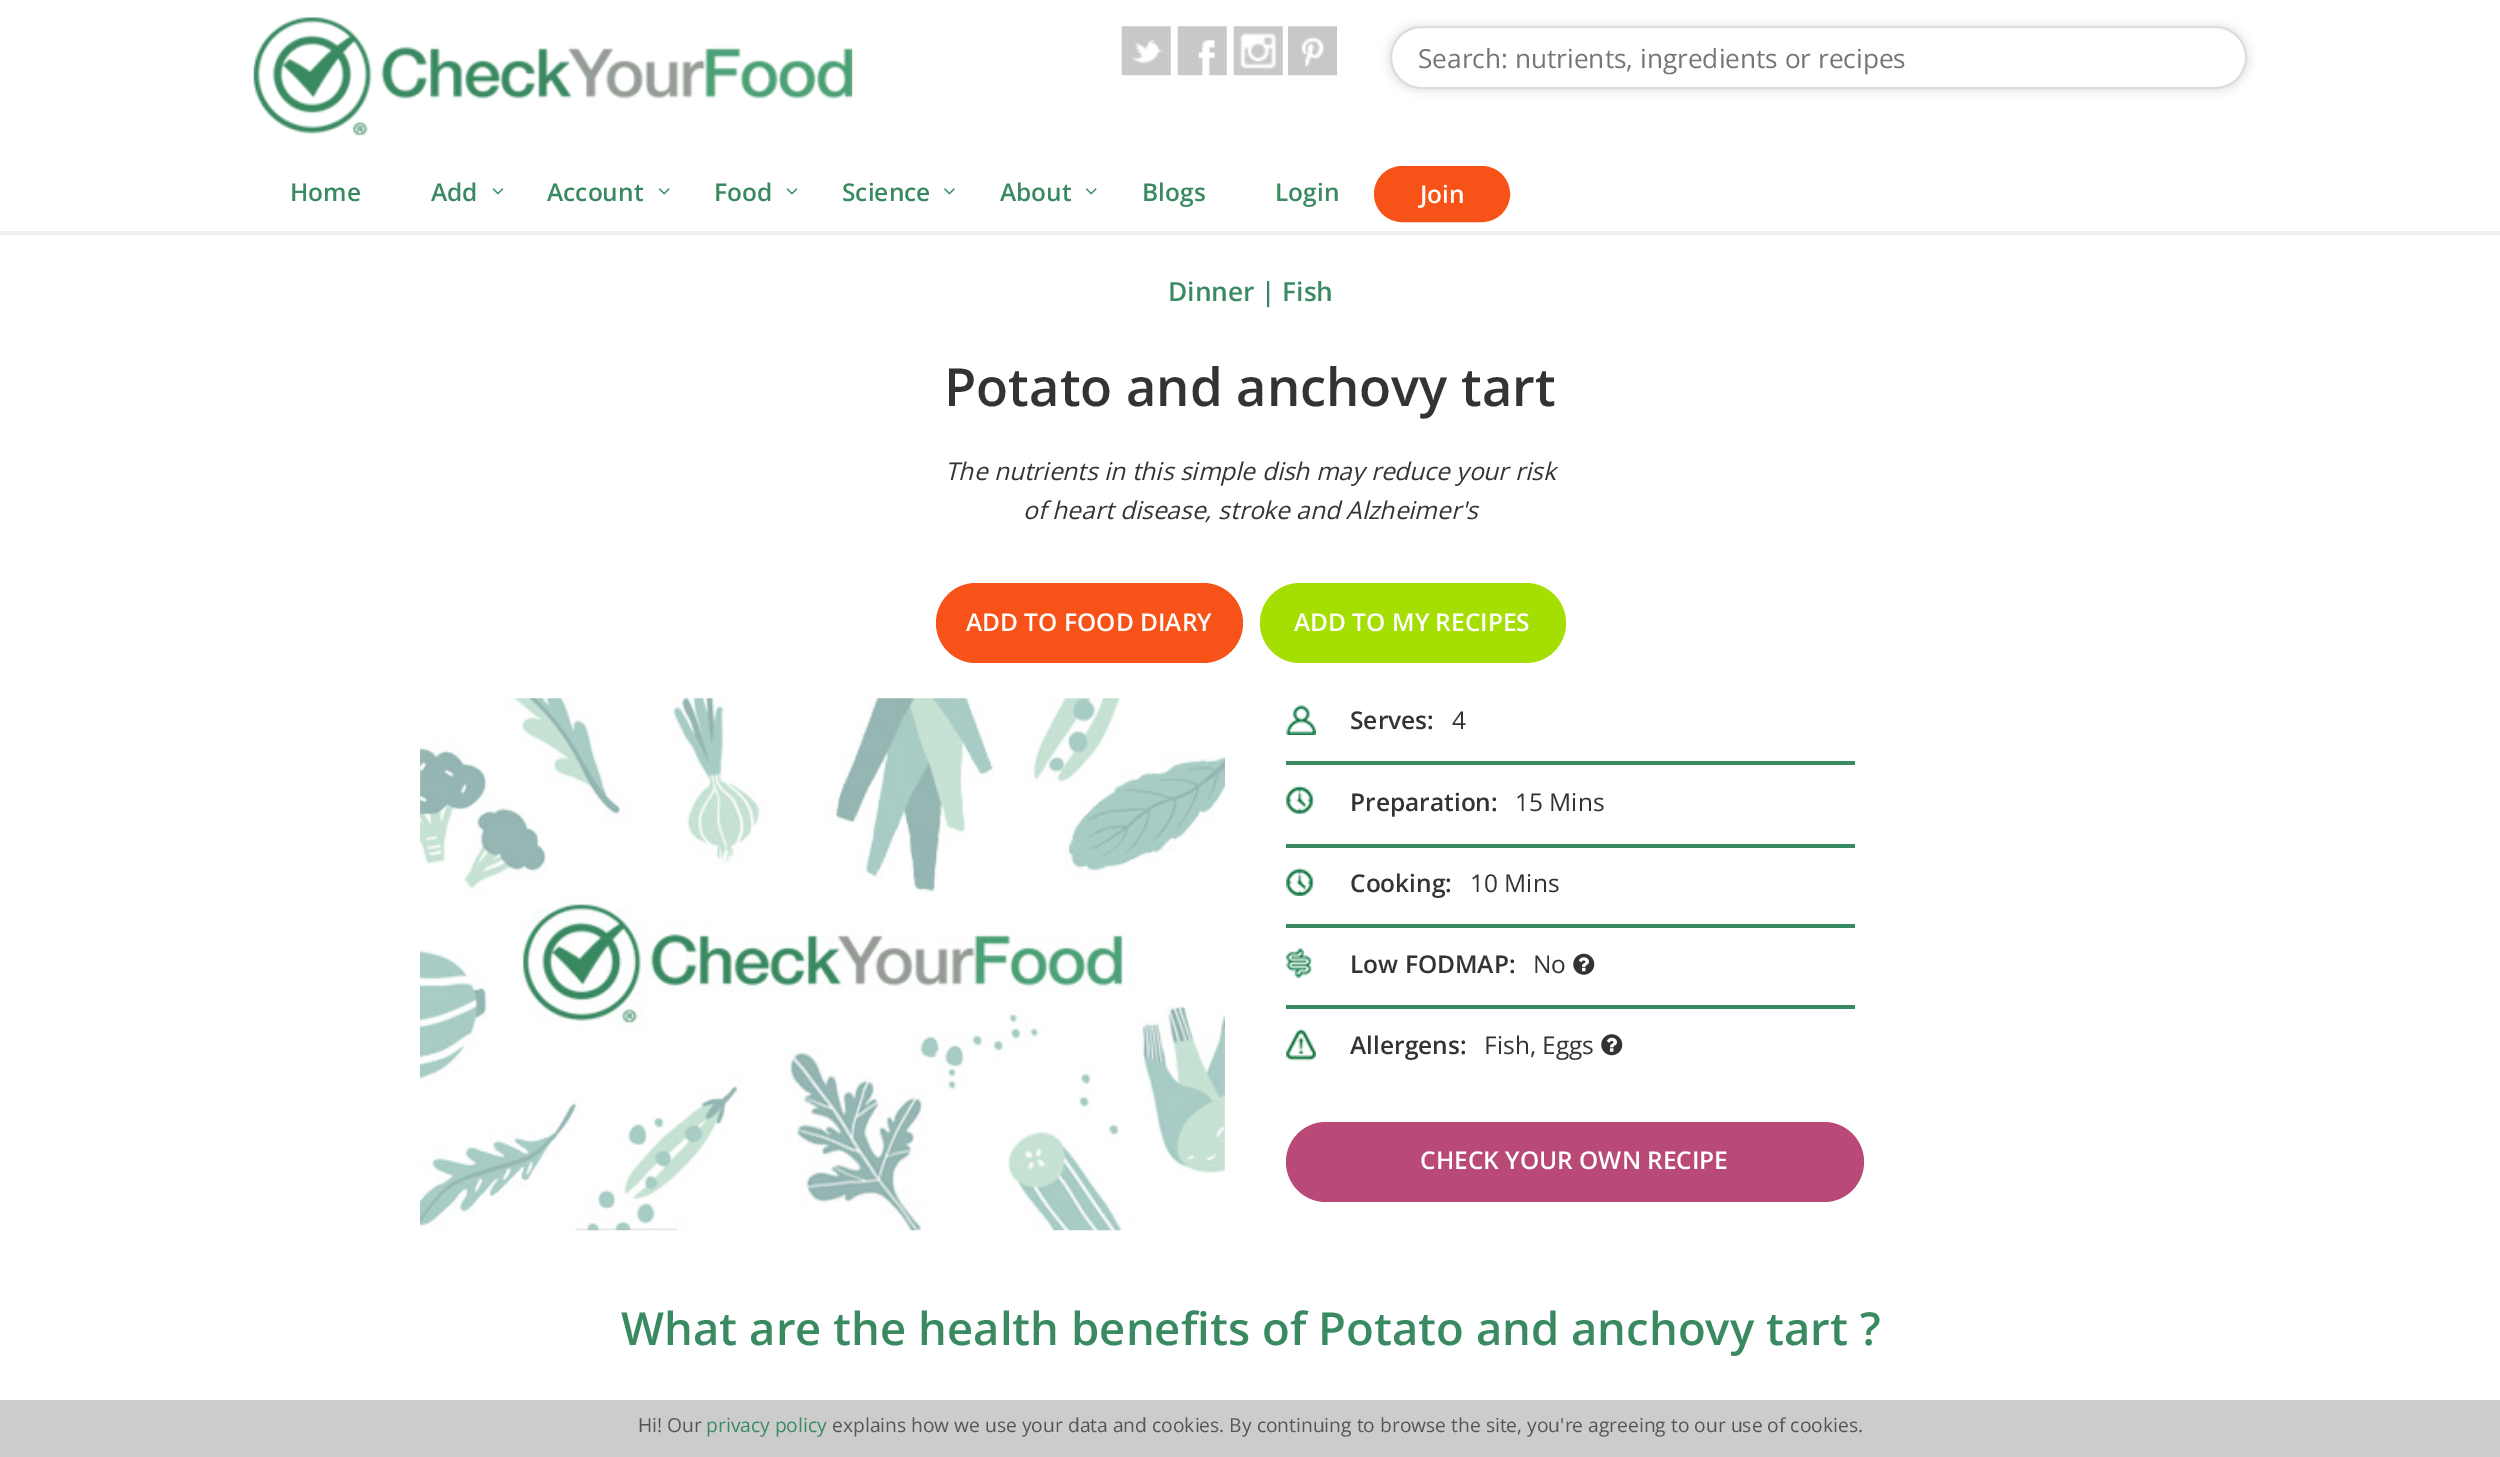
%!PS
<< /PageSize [2500 1457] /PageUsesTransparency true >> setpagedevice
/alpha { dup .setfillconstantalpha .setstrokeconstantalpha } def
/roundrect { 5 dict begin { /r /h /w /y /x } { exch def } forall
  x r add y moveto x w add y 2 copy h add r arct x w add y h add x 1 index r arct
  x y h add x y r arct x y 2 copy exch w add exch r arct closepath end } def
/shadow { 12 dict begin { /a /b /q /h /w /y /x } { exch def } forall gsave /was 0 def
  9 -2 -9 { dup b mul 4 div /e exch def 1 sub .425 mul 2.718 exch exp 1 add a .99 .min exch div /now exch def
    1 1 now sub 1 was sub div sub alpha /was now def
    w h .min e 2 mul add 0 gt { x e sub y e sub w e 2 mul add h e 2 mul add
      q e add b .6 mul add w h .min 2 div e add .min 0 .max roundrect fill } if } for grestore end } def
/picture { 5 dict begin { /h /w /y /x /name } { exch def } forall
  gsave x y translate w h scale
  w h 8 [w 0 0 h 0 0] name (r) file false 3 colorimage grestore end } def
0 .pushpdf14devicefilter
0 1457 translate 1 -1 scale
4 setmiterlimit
1 setgray
0 0 2500 1457 rectfill
0.933 setgray
0 231 2500 4 rectfill
(img1.rgb) 253 17 600 119 picture
(img2.rgb) 1121 26 50 50 picture
(img3.rgb) 1177 26 50 50 picture
(img4.rgb) 1233 26 50 50 picture
(img5.rgb) 1288 26 49 50 picture
0 setgray
1388 25 861 66 33 4.5 0.1 shadow
1 setgray
1391 27 855 61 30.5 roundrect gsave fill grestore
0.867 setgray
2 setlinewidth
stroke
/OpenSans-Regular [26.25 0 0 -26.25 0 0] selectfont
0.459 setgray
1418 68 moveto (Search: nutrients, ingredients or recipes) show
/OpenSans-SemiBold [24.5 0 0 -24.5 0 0] selectfont
0.224 0.537 0.38 setrgbcolor
290 201 moveto (Home) show
431 201 moveto (Add) show
(img6.rgb) 492 188 12 7 picture
547 201 moveto (Account) show
(img7.rgb) 658 188 12 7 picture
714 201 moveto (Food) show
(img6.rgb) 786 188 12 7 picture
842 201 moveto (Science) show
(img8.rgb) 944 188 11 7 picture
1000 201 moveto (About) show
(img7.rgb) 1085 188 12 7 picture
1142 201 moveto (Blogs) show
1275 201 moveto (Login) show
0.969 0.322 0.09 setrgbcolor
1375 167 134 54 27 roundrect gsave fill grestore
stroke
1 setgray
1420 203 moveto (Join) show
/OpenSans-SemiBold [26.25 0 0 -26.25 0 0] selectfont
0.224 0.537 0.38 setrgbcolor
1168 301 moveto (Dinner | Fish) show
/OpenSans-SemiBold [52.5 0 0 -52.5 0 0] selectfont
0.2 setgray
944 406 moveto (Potato and anchovy tart) show
/OpenSans-Italic [24.5 0 0 -24.5 0 0] selectfont
945 480 moveto (The nutrients in this simple dish may reduce your risk) show
1023 519 moveto (of heart disease, stroke and Alzheimer's) show
0.969 0.322 0.09 setrgbcolor
936 583 307 80 40 roundrect fill
/OpenSans-SemiBold [24.5 0 0 -24.5 0 0] selectfont
1 setgray
966 631 moveto (ADD TO FOOD DIARY) show
0.647 0.871 0.012 setrgbcolor
1260 583 306 80 40 roundrect fill
1 setgray
1294 631 moveto (ADD TO MY RECIPES) show
(img9.rgb) 420 698 805 533 picture
0.224 0.537 0.38 setrgbcolor
1286 761 569 4 rectfill
(img10.rgb) 1286 705 30 30 picture
0.2 setgray
1350 729 moveto (Serves:) show
/OpenSans-Regular [24.5 0 0 -24.5 0 0] selectfont
1452 729 moveto (4) show
0.224 0.537 0.38 setrgbcolor
1286 844 569 4 rectfill
(img11.rgb) 1286 785 29 29 picture
/OpenSans-SemiBold [24.5 0 0 -24.5 0 0] selectfont
0.2 setgray
1350 811 moveto (Preparation:) show
/OpenSans-Regular [24.5 0 0 -24.5 0 0] selectfont
1515 811 moveto (15 Mins) show
0.224 0.537 0.38 setrgbcolor
1286 924 569 4 rectfill
(img12.rgb) 1286 868 29 28 picture
/OpenSans-SemiBold [24.5 0 0 -24.5 0 0] selectfont
0.2 setgray
1350 892 moveto (Cooking:) show
/OpenSans-Regular [24.5 0 0 -24.5 0 0] selectfont
1470 892 moveto (10 Mins) show
0.224 0.537 0.38 setrgbcolor
1286 1005 569 4 rectfill
(img13.rgb) 1286 948 26 31 picture
/OpenSans-SemiBold [24.5 0 0 -24.5 0 0] selectfont
0.2 setgray
1350 973 moveto (Low FODMAP:) show
/OpenSans-Regular [24.5 0 0 -24.5 0 0] selectfont
1533 973 moveto (No) show
(img14.rgb) 1573 953 22 22 picture
(img15.rgb) 1286 1029 30 32 picture
/OpenSans-SemiBold [24.5 0 0 -24.5 0 0] selectfont
1350 1054 moveto (Allergens:) show
/OpenSans-Regular [24.5 0 0 -24.5 0 0] selectfont
1484 1054 moveto (Fish, Eggs) show
(img16.rgb) 1601 1034 22 22 picture
0.725 0.286 0.467 setrgbcolor
1286 1122 578 80 40 roundrect fill
/OpenSans-SemiBold [24.5 0 0 -24.5 0 0] selectfont
1 setgray
1420 1169 moveto (CHECK YOUR OWN RECIPE) show
/OpenSans-SemiBold [45.5 0 0 -45.5 0 0] selectfont
0.224 0.537 0.38 setrgbcolor
621 1345 moveto (What are the health benefits of Potato and anchovy tart ?) show
0.8 setgray
0 1400 2500 57 rectfill
/OpenSans-Regular [19.25 0 0 -19.25 0 0] selectfont
0.333 setgray
638 1432 moveto (Hi! Our) show
0.224 0.537 0.38 setrgbcolor
706 1432 moveto (privacy policy) show
0.333 setgray
832 1432 moveto (explains how we use your data and cookies. By continuing to browse the site, you're agreeing to our use of cookies.) show
.poppdf14devicefilter showpage
